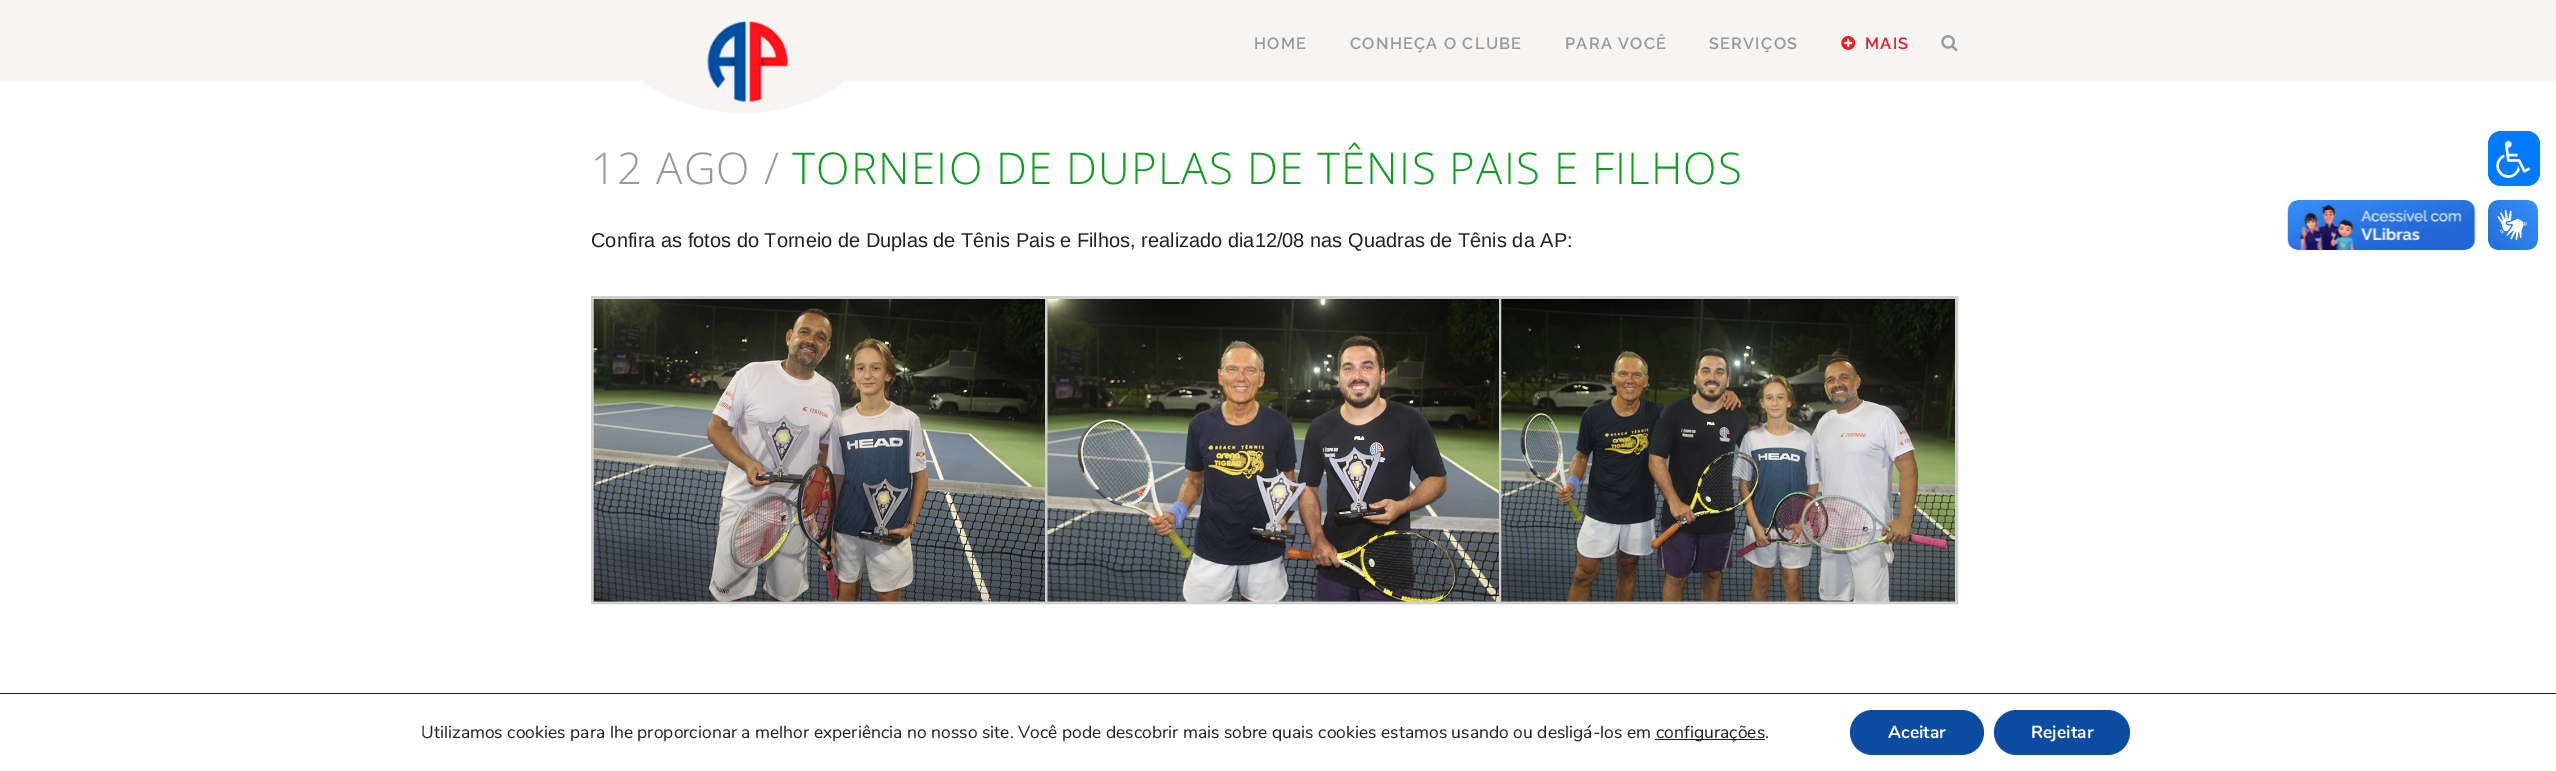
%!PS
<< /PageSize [2556 771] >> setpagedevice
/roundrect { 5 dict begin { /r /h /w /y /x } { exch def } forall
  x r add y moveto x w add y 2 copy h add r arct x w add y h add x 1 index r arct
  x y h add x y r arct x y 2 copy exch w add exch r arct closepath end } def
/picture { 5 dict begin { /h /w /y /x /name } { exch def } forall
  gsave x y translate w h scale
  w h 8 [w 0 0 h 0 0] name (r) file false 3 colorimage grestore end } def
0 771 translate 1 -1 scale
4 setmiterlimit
1 setgray
0 0 2556 771 rectfill
0.969 0.957 0.957 setrgbcolor
0 0 2556 81 rectfill
(img1.rgb) 641 21 206 93 picture
/Raleway-SemiBold [16.25 0 0 -16.25 0 0] selectfont
0.6 setgray
1254 49 moveto 1.25 0 (HOME) ashow
1350 49 moveto 1.25 0 (CONHEÇA O CLUBE) ashow
1565 49 moveto 1.25 0 (PARA VOCÊ) ashow
1709 49 moveto 1.25 0 (SERVIÇOS) ashow
(img2.rgb) 1841 36 15 14 picture
0.925 0.106 0.141 setrgbcolor
1865 49 moveto 1.25 0 (MAIS) ashow
(img3.rgb) 1941 35 17 17 picture
0 0.482 1 setrgbcolor
2488 131 52 55 13 roundrect fill
(img4.rgb) 2496 141 35 37 picture
/OpenSans-Light [43.75 0 0 -43.75 0 0] selectfont
0.6 setgray
591 184 moveto 1.25 0 (12 AGO /) ashow
0.051 0.616 0.129 setrgbcolor
792 184 moveto 1.25 0 (TORNEIO DE DUPLAS DE TÊNIS PAIS E FILHOS) ashow
/LiberationSans-Regular [20 0 0 -20 0 0] selectfont
0.133 setgray
591 247 moveto (Confira as fotos do Torneio de Duplas de Tênis Pais e Filhos, realizado dia12/08 nas Quadras de Tênis da AP:) show
0.812 setgray
3 setlinewidth
592.5 297.5 456 305 rectstroke
(img5.rgb) 593 299 452 303 picture
1046.5 297.5 456 305 rectstroke
(img6.rgb) 1047 299 452 303 picture
1500.5 297.5 456 305 rectstroke
(img7.rgb) 1501 299 454 303 picture
(img8.rgb) 2287 200 189 50 picture
(img9.rgb) 2488 200 50 50 picture
0.125 setgray
0 693 2556 1 rectfill
/Nunito-Regular [17.5 0 0 -17.5 0 0] selectfont
0.133 setgray
421 738 moveto (Utilizamos cookies para lhe proporcionar a melhor experiência no nosso site. Você pode descobrir mais sobre quais cookies estamos usando ou desligá-los em) show
0.125 setgray
1655 739 110 1 rectfill
0.133 setgray
1656 738 moveto (configurações.) show
0.047 0.302 0.635 setrgbcolor
1850 710 134 45 22.5 roundrect fill
/Nunito-Bold [17.5 0 0 -17.5 0 0] selectfont
1 setgray
1888 738 moveto (Aceitar) show
0.047 0.302 0.635 setrgbcolor
1994 710 136 45 22.5 roundrect fill
1 setgray
2031 738 moveto (Rejeitar) show
showpage
